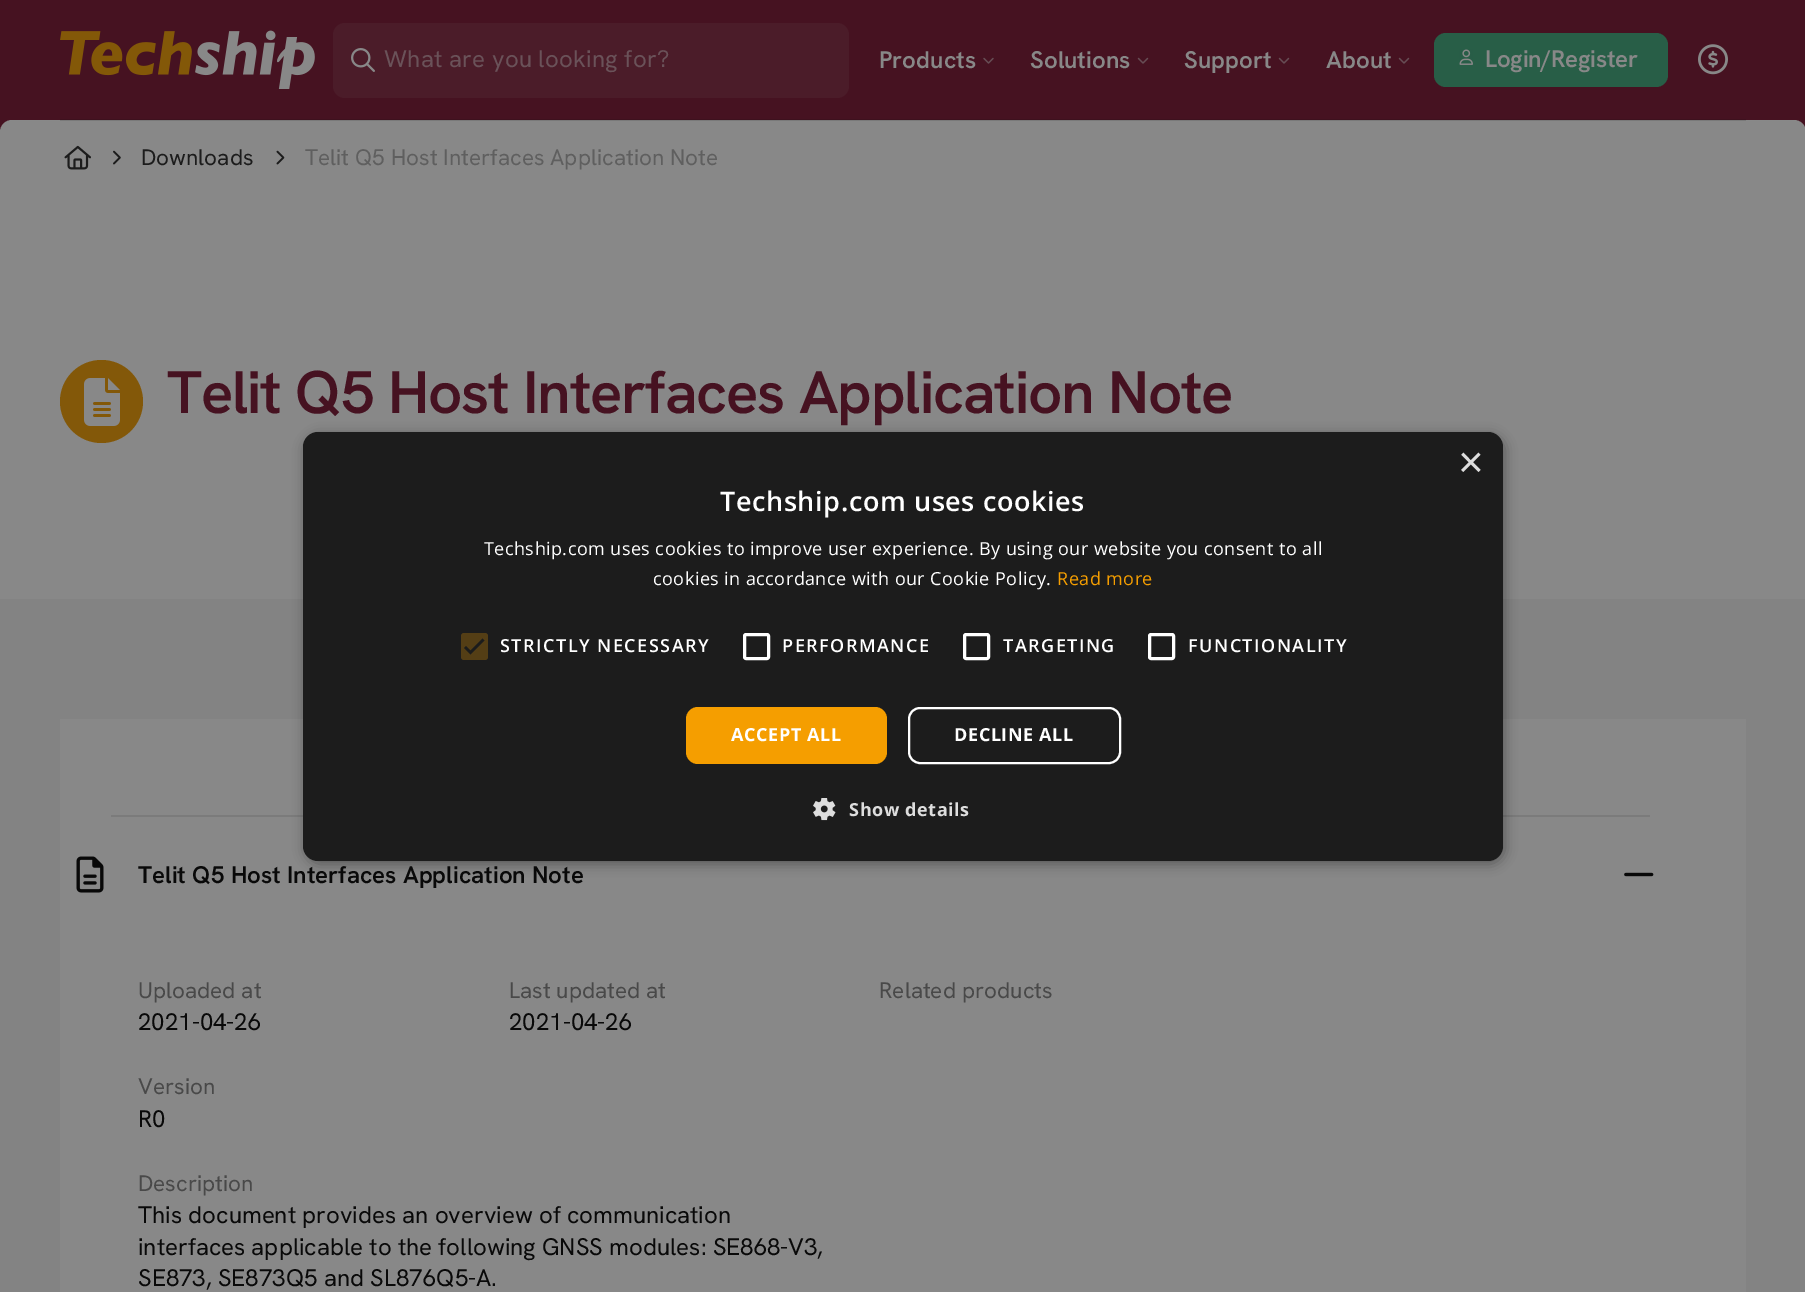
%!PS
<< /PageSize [1805 1292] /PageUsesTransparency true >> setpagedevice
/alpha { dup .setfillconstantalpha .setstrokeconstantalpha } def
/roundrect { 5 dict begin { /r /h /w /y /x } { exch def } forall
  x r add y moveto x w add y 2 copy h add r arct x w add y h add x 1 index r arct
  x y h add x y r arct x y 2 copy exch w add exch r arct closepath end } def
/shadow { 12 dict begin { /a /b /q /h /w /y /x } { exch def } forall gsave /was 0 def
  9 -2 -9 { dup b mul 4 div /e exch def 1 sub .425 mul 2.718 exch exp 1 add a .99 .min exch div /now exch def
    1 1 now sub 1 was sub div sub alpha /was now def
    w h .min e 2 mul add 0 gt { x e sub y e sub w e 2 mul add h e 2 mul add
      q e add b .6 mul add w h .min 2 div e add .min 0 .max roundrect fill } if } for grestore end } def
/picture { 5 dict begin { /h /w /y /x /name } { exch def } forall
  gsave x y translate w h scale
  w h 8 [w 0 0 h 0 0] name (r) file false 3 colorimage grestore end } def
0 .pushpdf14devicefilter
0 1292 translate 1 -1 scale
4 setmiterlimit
0.275 0.071 0.129 setrgbcolor
0 0 1805 1292 rectfill
0.243 0.067 0.118 setrgbcolor
60 119 1686 1 rectfill
(img1.rgb) 60 30 255 59 picture
0.294 0.11 0.161 setrgbcolor
333 23 516 75 12 roundrect fill
(img2.rgb) 351 48 24 24 picture
/HankenGrotesk-Regular [24 0 0 -24 0 0] selectfont
0.416 0.322 0.349 setrgbcolor
384 67 moveto 0.25 0 (What are you looking for?) ashow
/HankenGrotesk-SemiBold [24 0 0 -24 0 0] selectfont
0.533 setgray
879 68 moveto (Products) show
(img3.rgb) 983 57 11 7 picture
1030 68 moveto (Solutions) show
(img4.rgb) 1137 57 12 7 picture
1184 68 moveto (Support) show
(img4.rgb) 1278 57 12 7 picture
1326 68 moveto (About) show
(img4.rgb) 1398 57 12 7 picture
0.106 0.345 0.243 setrgbcolor
1434 33 234 54 12 roundrect fill
0.12 alpha
0.533 setgray
1434 33 234 54 12 roundrect fill
1 alpha
(img5.rgb) 1459 49 14 16 picture
1485 67 moveto -0.25 0 (Login/Register) ashow
(img6.rgb) 1698 44 30 31 picture
0 120 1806 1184 12 roundrect fill
(img7.rgb) 64 145 27 25 picture
(img8.rgb) 113 150 8 15 picture
/HankenGrotesk-Regular [22.5 0 0 -22.5 0 0] selectfont
0.11 setgray
141 165 moveto (Downloads) show
(img9.rgb) 276 150 9 15 picture
0.373 setgray
305 165 moveto (Telit Q5 Host Interfaces Application Note) show
0.475 setgray
60 120 1686 1 rectfill
0.514 0.345 0.035 setrgbcolor
newpath 101.5 401.5 41.5 0 360 arc closepath fill
(img10.rgb) 84 378 36 48 picture
/HankenGrotesk-SemiBold [60 0 0 -60 0 0] selectfont
0.275 0.071 0.129 setrgbcolor
167 413 moveto -1.2 0 (Telit Q5 Host Interfaces Application Note) ashow
0.514 setgray
0 599 1805 693 rectfill
0.533 setgray
60 719 1686 573 rectfill
0.482 setgray
111 815 1539 2 rectfill
(img11.rgb) 76 856 28 37 picture
/HankenGrotesk-SemiBold [24 0 0 -24 0 0] selectfont
0.035 setgray
138 883 moveto (Telit Q5 Host Interfaces Application Note) show
(img12.rgb) 1624 872 30 5 picture
/HankenGrotesk-Regular [22.5 0 0 -22.5 0 0] selectfont
0.286 setgray
138 998 moveto (Uploaded at) show
/HankenGrotesk-Regular [24 0 0 -24 0 0] selectfont
0.035 setgray
138 1030 moveto (2021-04-26) show
/HankenGrotesk-Regular [22.5 0 0 -22.5 0 0] selectfont
0.286 setgray
509 998 moveto (Last updated at) show
/HankenGrotesk-Regular [24 0 0 -24 0 0] selectfont
0.035 setgray
509 1030 moveto (2021-04-26) show
/HankenGrotesk-Regular [22.5 0 0 -22.5 0 0] selectfont
0.286 setgray
138 1094 moveto (Version) show
/HankenGrotesk-Regular [24 0 0 -24 0 0] selectfont
0.035 setgray
138 1127 moveto (R0) show
/HankenGrotesk-Regular [22.5 0 0 -22.5 0 0] selectfont
0.286 setgray
138 1191 moveto (Description) show
/HankenGrotesk-Regular [24 0 0 -24 0 0] selectfont
0.035 setgray
138 1223 moveto (This document provides an overview of communication) show
138 1255 moveto (interfaces applicable to the following GNSS modules: SE868-V3,) show
138 1286 moveto (SE873, SE873Q5 and SL876Q5-A.) show
/HankenGrotesk-Regular [22.5 0 0 -22.5 0 0] selectfont
0.286 setgray
879 998 moveto (Related products) show
0 setgray
305 435 1200 429 15 6 0.35 shadow
0.11 setgray
303 432 1200 429 15 roundrect fill
/LiberationSans-Regular [44 0 0 -44 0 0] selectfont
0.867 setgray
1458 477 moveto (×) show
/OpenSans-SemiBold [27 0 0 -27 0 0] selectfont
1 setgray
720 511 moveto 0.6 0 (Techship.com uses cookies) ashow
/OpenSans-Regular [18 0 0 -18 0 0] selectfont
484 555 moveto 0.45 0 (Techship.com uses cookies to improve user experience. By using our website you consent to all) ashow
653 585 moveto 0.45 0 (cookies in accordance with our Cookie Policy.) ashow
0.961 0.62 0 setrgbcolor
1057 585 moveto 0.45 0 (Read more) ashow
0.329 0.243 0.082 setrgbcolor
461 633 27 27 3 roundrect fill
0.11 setgray
2.7 setlinewidth
newpath 465 647 moveto 470.5 652.5 lineto 483.5 639.5 lineto stroke
/OpenSans-SemiBold [18 0 0 -18 0 0] selectfont
1 setgray
500 652 moveto 1.5 0 (STRICTLY NECESSARY) ashow
3 setlinewidth
744.5 634.5 24 24 1.5 roundrect stroke
782 652 moveto 1.5 0 (PERFORMANCE) ashow
964.5 634.5 24 24 1.5 roundrect stroke
1003 652 moveto 1.5 0 (TARGETING) ashow
1149.5 634.5 24 24 1.5 roundrect stroke
1188 652 moveto 1.5 0 (FUNCTIONALITY) ashow
0.961 0.62 0 setrgbcolor
686 707 201 57 12 roundrect fill
/OpenSans-Bold [18 0 0 -18 0 0] selectfont
1 setgray
731 741 moveto 0.6 0 (ACCEPT ALL) ashow
2 setlinewidth
909 708 211 55 11 roundrect stroke
954 741 moveto 0.6 0 (DECLINE ALL) ashow
(img13.rgb) 813 798 23 23 picture
0.867 setgray
849 816 moveto 0.6 0 (Show details) ashow
.poppdf14devicefilter showpage
